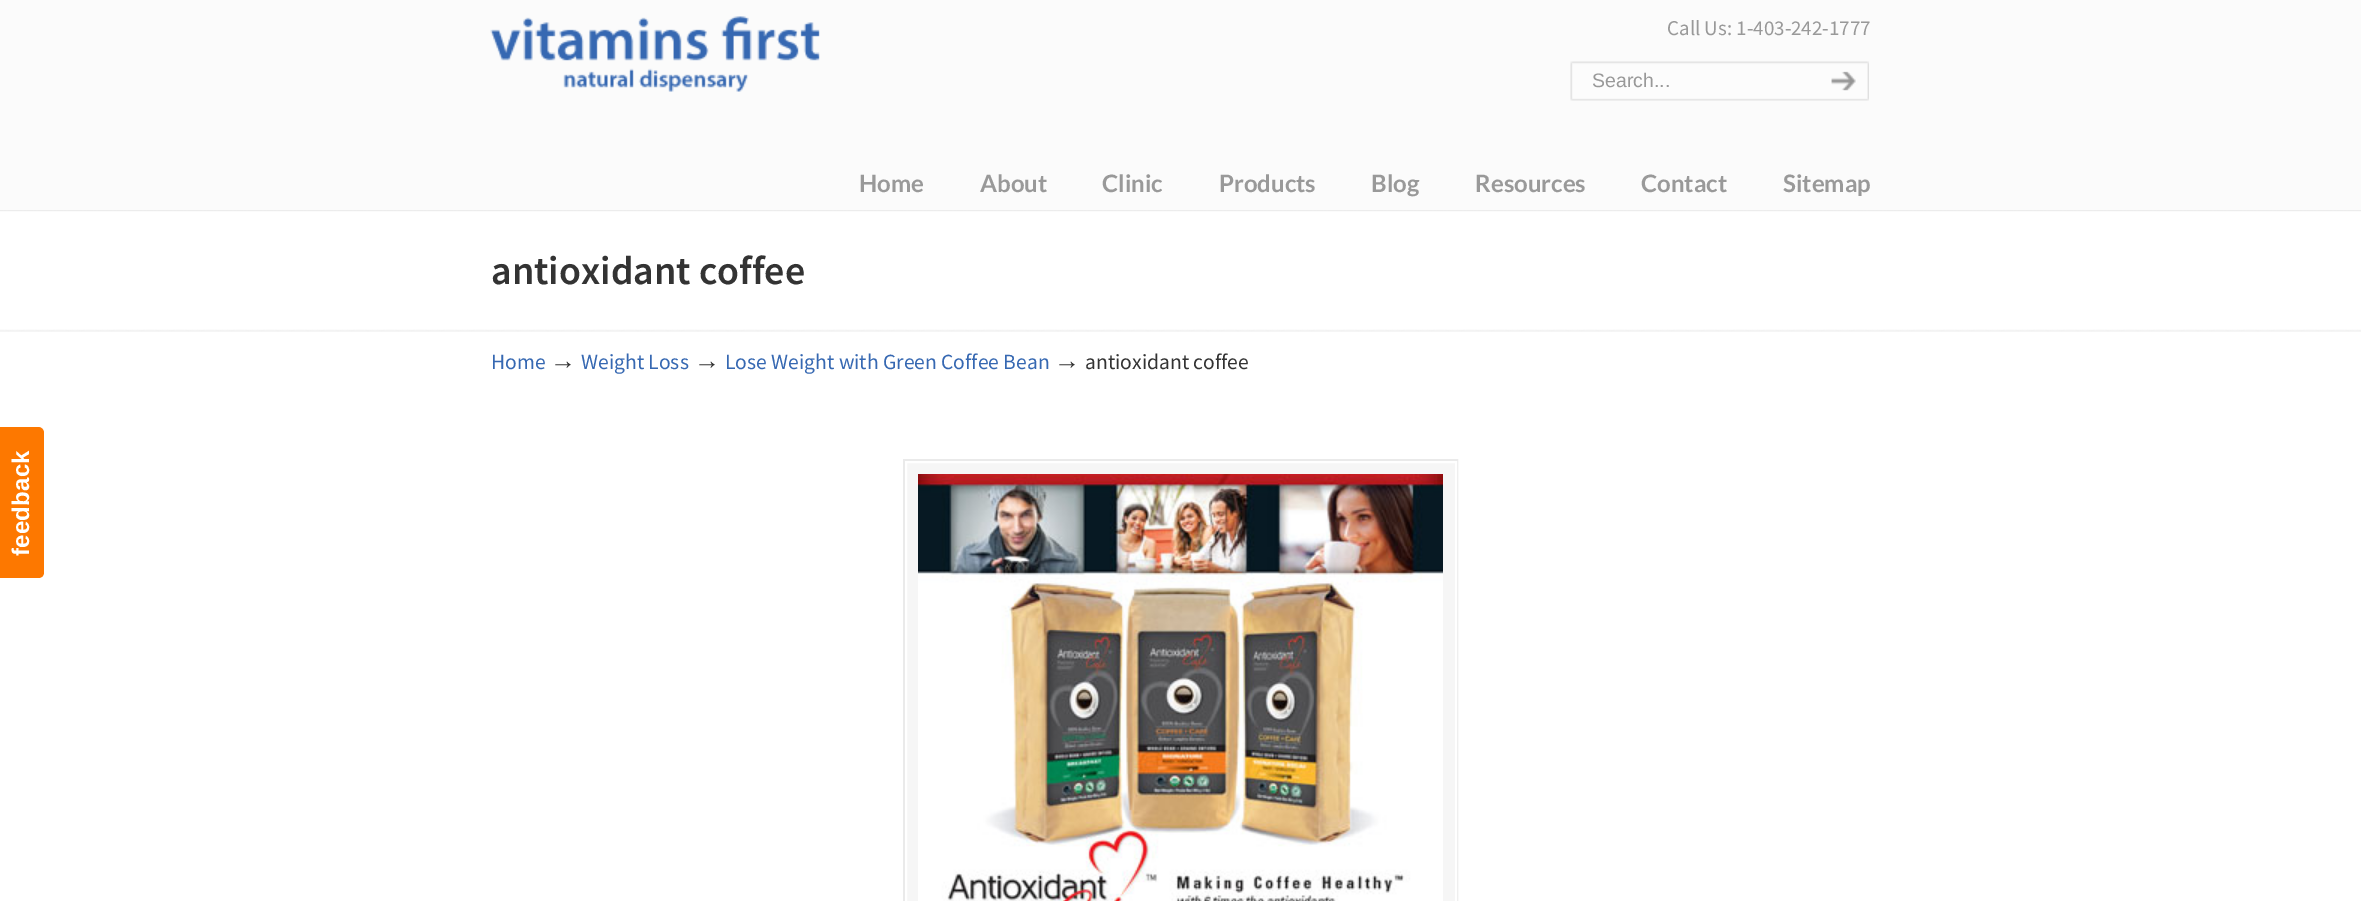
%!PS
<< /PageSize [2361 901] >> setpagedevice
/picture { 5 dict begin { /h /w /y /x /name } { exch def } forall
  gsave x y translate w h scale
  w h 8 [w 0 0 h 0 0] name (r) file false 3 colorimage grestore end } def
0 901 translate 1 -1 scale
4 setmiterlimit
0.984 setgray
0 0 2361 901 rectfill
(img1.rgb) 490 16 330 76 picture
/SourceSansPro-Regular [21 0 0 -21 0 0] selectfont
0.6 setgray
1667 35 moveto (Call Us: 1-403-242-1777) show
(img2.rgb) 1570 61 239 40 picture
/LiberationSans-Regular [19.5 0 0 -19.5 0 0] selectfont
1592 87 moveto (Search...) show
(img3.rgb) 1809 61 60 40 picture
/Lato-Bold [24 0 0 -24 0 0] selectfont
859 192 moveto (Home) show
980 192 moveto (About) show
1102 192 moveto (Clinic) show
1219 192 moveto (Products) show
1371 192 moveto (Blog) show
1475 192 moveto (Resources) show
1641 192 moveto (Contact) show
1783 192 moveto (Sitemap) show
(img4.rgb) 0 210 2361 1 picture
1 setgray
0 212 2361 689 rectfill
/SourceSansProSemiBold-SemiBold [40 0 0 -40 0 0] selectfont
0.2 setgray
491 284 moveto (antioxidant coffee) show
(img5.rgb) 0 329 2361 3 picture
/SourceSansPro-Regular [21.6 0 0 -21.6 0 0] selectfont
0.212 0.408 0.698 setrgbcolor
491 369 moveto (Home) show
/LiberationSerif-Regular [26 0 0 -26 0 0] selectfont
0.2 setgray
550 369 moveto (→) show
/SourceSansPro-Regular [21.6 0 0 -21.6 0 0] selectfont
0.212 0.408 0.698 setrgbcolor
581 369 moveto (Weight Loss) show
/LiberationSerif-Regular [26 0 0 -26 0 0] selectfont
0.2 setgray
694 369 moveto (→) show
/SourceSansPro-Regular [21.6 0 0 -21.6 0 0] selectfont
0.212 0.408 0.698 setrgbcolor
725 369 moveto (Lose Weight with Green Coffee Bean) show
/LiberationSerif-Regular [26 0 0 -26 0 0] selectfont
0.2 setgray
1054 369 moveto (→) show
/SourceSansPro-Regular [21.6 0 0 -21.6 0 0] selectfont
1085 369 moveto (antioxidant coffee) show
0.965 setgray
907 463 548 438 rectfill
0.918 setgray
2 setlinewidth
904 460 553 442 rectstroke
1 setgray
906 462 550 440 rectstroke
(img6.rgb) 918 474 525 427 picture
0.992 0.471 0 setrgbcolor
newpath -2 578 moveto -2 427 lineto 38 427 lineto 42 427 44 430 44 433 curveto 44 572 lineto 44 576 42 578 38 578 curveto closepath fill
/LiberationSans-Bold [24 0 0 -24 0 0] selectfont
1 setgray
gsave 29 556 translate -90 rotate 0 0 moveto 0.25 0 (feedback) ashow grestore
showpage
